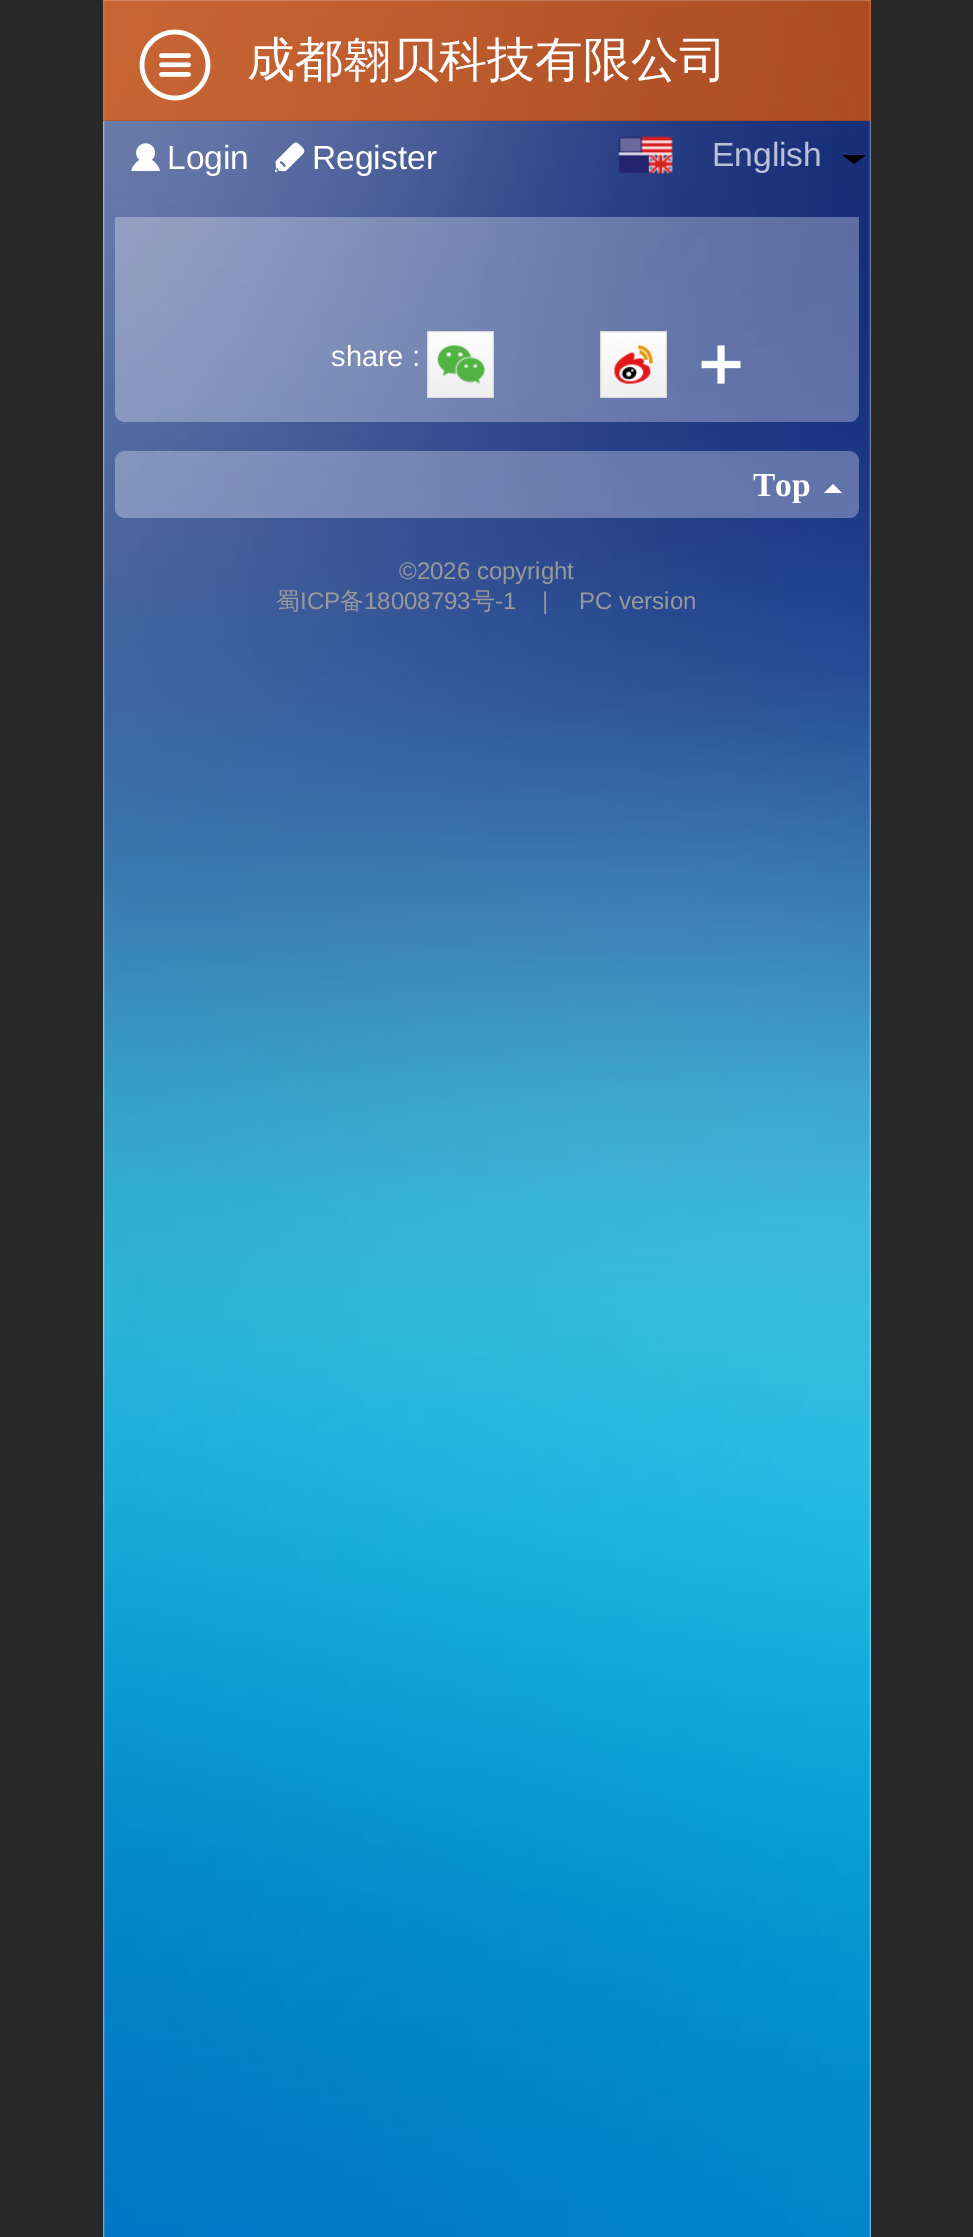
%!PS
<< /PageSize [973 2237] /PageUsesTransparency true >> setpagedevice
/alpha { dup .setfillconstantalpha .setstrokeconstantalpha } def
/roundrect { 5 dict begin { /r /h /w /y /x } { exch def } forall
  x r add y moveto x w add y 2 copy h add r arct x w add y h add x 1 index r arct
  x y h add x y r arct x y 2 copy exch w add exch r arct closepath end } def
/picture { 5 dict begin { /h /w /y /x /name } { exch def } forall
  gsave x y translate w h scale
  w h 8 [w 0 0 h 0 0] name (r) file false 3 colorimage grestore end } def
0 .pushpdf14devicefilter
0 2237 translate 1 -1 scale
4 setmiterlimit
1 setgray
0 0 973 2237 rectfill
0.157 setgray
0 0 103 2237 rectfill
(img1.rgb) 103 0 768 2237 picture
0.7 alpha
0.929 0.353 0 setrgbcolor
103 0 768 121 rectfill
1 alpha
(img2.rgb) 139 29 72 72 picture
0.2 alpha
1 setgray
103 0 768 1 rectfill
0.1 alpha
0 setgray
103 120 768 1 rectfill
/WenQuanYiZenHei-Medium [48 0 0 -48 0 0] selectfont
1 alpha
1 setgray
247 76 moveto (成都翱贝科技有限公司) show
(img3.rgb) 131 143 29 28 picture
/LiberationSans-Regular [33.5 0 0 -33.5 0 0] selectfont
167 169 moveto (Login) show
(img4.rgb) 274 142 31 30 picture
312 169 moveto (Register) show
(img5.rgb) 618 136 55 38 picture
0.733 0.761 0.847 setrgbcolor
712 166 moveto (English) show
0 setgray
newpath 842 155 moveto 866 155 lineto 854 164 lineto closepath fill
0.3 alpha
1 setgray
newpath 115 217 moveto 859 217 lineto 859 412 lineto 859 417.5 854.5 422 849 422 curveto 125 422 lineto 119.5 422 115 417.5 115 412 curveto closepath fill
/LiberationSans-Regular [29 0 0 -29 0 0] selectfont
1 alpha
331 366 moveto (share :) show
(img6.rgb) 427 331 67 67 picture
(img7.rgb) 600 331 67 67 picture
(img8.rgb) 701 345 40 39 picture
0.3 alpha
115 451 744 67 10 roundrect fill
/LiberationSerif-Bold [33.5 0 0 -33.5 0 0] selectfont
1 alpha
753 496 moveto (Top) show
newpath 842 493 moveto 824 493 lineto 833 484 lineto closepath fill
/LiberationSans-Regular [24 0 0 -24 0 0] selectfont
0.6 setgray
399 579 moveto (©2026 copyright) show
/WenQuanYiZenHei-Medium [24 0 0 -24 0 0] selectfont
276 609 moveto (蜀) show
/LiberationSans-Regular [24 0 0 -24 0 0] selectfont
300 609 moveto (ICP) show
/WenQuanYiZenHei-Medium [24 0 0 -24 0 0] selectfont
340 609 moveto (备) show
/LiberationSans-Regular [24 0 0 -24 0 0] selectfont
364 609 moveto (18008793) show
/WenQuanYiZenHei-Medium [24 0 0 -24 0 0] selectfont
471 609 moveto (号) show
/LiberationSans-Regular [24 0 0 -24 0 0] selectfont
495 609 moveto (-1) show
542 609 moveto (|) show
579 609 moveto (PC version) show
0.157 setgray
871 0 102 2237 rectfill
.poppdf14devicefilter showpage
